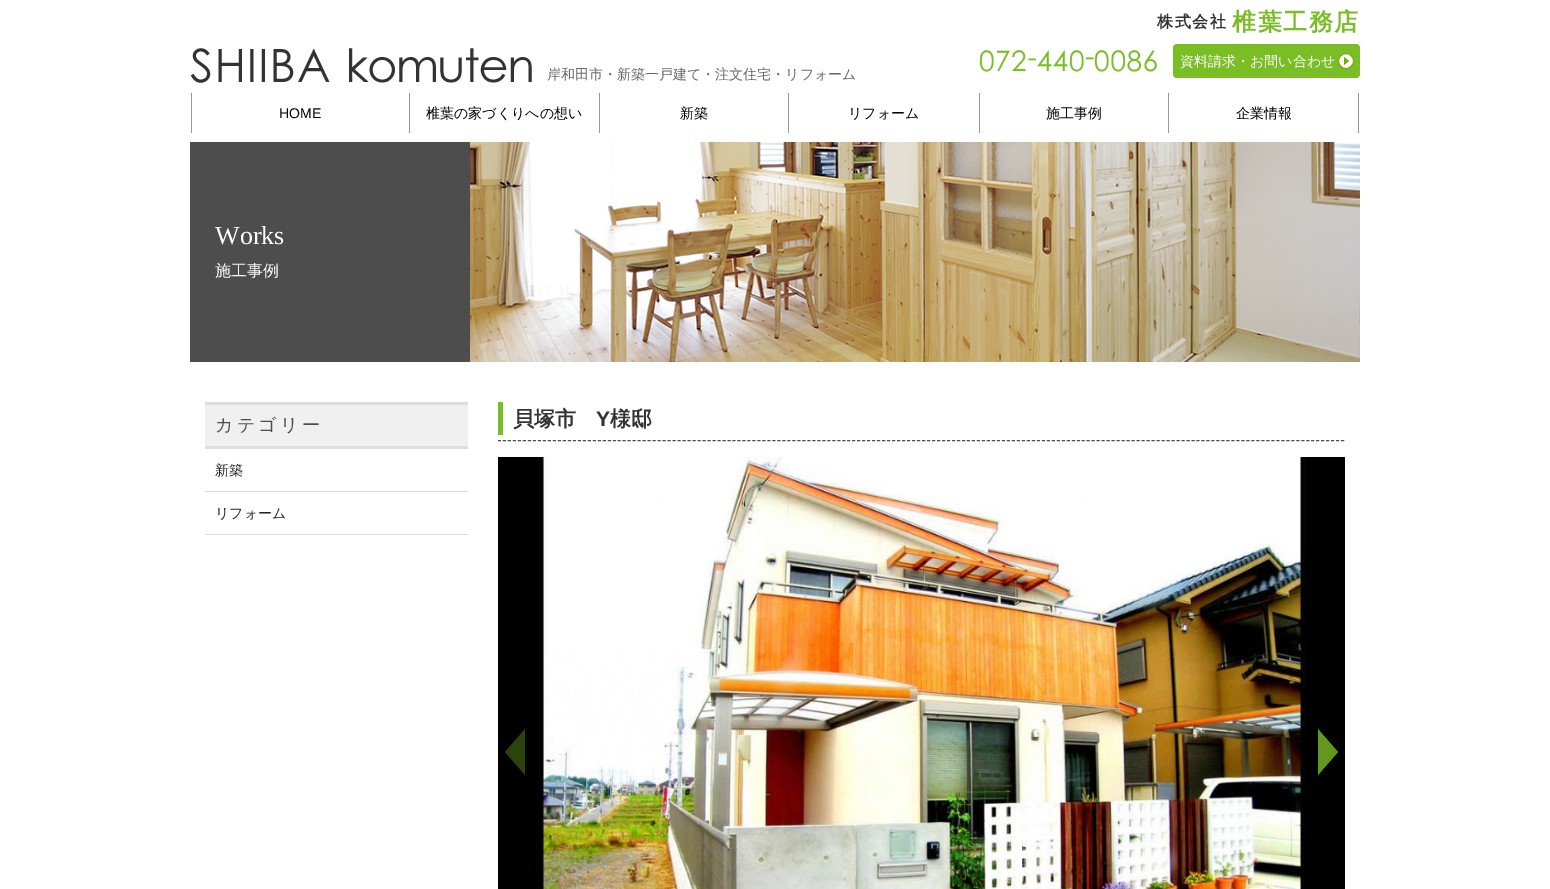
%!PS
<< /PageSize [1550 889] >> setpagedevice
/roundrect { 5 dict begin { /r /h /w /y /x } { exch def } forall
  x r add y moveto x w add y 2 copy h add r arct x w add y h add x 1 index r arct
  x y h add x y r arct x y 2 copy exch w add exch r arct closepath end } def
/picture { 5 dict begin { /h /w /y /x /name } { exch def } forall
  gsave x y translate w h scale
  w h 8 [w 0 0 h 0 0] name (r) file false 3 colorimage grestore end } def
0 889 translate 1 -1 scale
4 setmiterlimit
1 setgray
0 0 1550 889 rectfill
/WenQuanYiZenHei-Bold [16 0 0 -16 0 0] selectfont
0.2 setgray
1157 27 moveto 1.5 0 (株式会社) ashow
/WenQuanYiZenHei-Bold [24 0 0 -24 0 0] selectfont
0.478 0.745 0.145 setrgbcolor
1232 30 moveto 1.5 0 (椎葉工務店) ashow
(img1.rgb) 979 50 178 22 picture
1173 44 187 34 4 roundrect fill
/WenQuanYiZenHei-Medium [14 0 0 -14 0 0] selectfont
1 setgray
1180 66 moveto (資料請求・お問い合わせ) show
newpath 1346 61 7.5 0 360 arc closepath gsave fill grestore
0.467 0.667 0 setrgbcolor
stroke
newpath 1344 65 moveto 1344 57 lineto 1349 61 lineto closepath fill
(img2.rgb) 190 48 342 35 picture
0.4 setgray
547 79 moveto (岸和田市・新築一戸建て・注文住宅・リフォーム) show
0.6 setgray
191 93 1 40 rectfill
409 93 1 40 rectfill
/LiberationSans-Regular [14 0 0 -14 0 0] selectfont
0 setgray
279 118 moveto (HOME) show
0.6 setgray
599 93 1 40 rectfill
/WenQuanYiZenHei-Medium [14 0 0 -14 0 0] selectfont
0 setgray
426 118 moveto (椎葉の家づくりへの想い) show
0.6 setgray
788 93 1 40 rectfill
0 setgray
680 118 moveto (新築) show
0.6 setgray
979 93 1 40 rectfill
0 setgray
848 118 moveto (リフォーム) show
0.6 setgray
1168 93 1 40 rectfill
0 setgray
1046 118 moveto (施工事例) show
0.6 setgray
1358 93 1 40 rectfill
0 setgray
1236 118 moveto (企業情報) show
(img3.rgb) 470 142 890 220 picture
0.302 setgray
190 142 280 220 rectfill
/LiberationSerif-Regular [26 0 0 -26 0 0] selectfont
1 setgray
215 244 moveto (Works) show
/WenQuanYiZenHei-Medium [16 0 0 -16 0 0] selectfont
215 276 moveto (施工事例) show
0.941 setgray
205 405 263 41 rectfill
0.867 setgray
205 402 263 3 rectfill
205 446 263 3 rectfill
/WenQuanYiZenHei-Medium [18 0 0 -18 0 0] selectfont
0.302 setgray
215 431 moveto 3.25 0 (カテゴリー) ashow
0.867 setgray
205 491 263 1 rectfill
/WenQuanYiZenHei-Medium [14 0 0 -14 0 0] selectfont
0.133 setgray
215 475 moveto (新築) show
0.867 setgray
205 534 263 1 rectfill
0.133 setgray
215 518 moveto (リフォーム) show
0.302 setgray
[3 1.99] 0 setdash
newpath 498 440.5 moveto 1345 440.5 lineto stroke
0.478 0.745 0.145 setrgbcolor
498 402 5 33 rectfill
/WenQuanYiZenHei-Bold [21 0 0 -21 0 0] selectfont
0.2 setgray
513 426 moveto (貝塚市) show
/LiberationSans-Bold [21 0 0 -21 0 0] selectfont
596 426 moveto (Y) show
/WenQuanYiZenHei-Bold [21 0 0 -21 0 0] selectfont
610 426 moveto (様邸) show
0 setgray
498 457 847 432 rectfill
(img4.rgb) 538 457 769 432 picture
0.169 0.263 0.051 setrgbcolor
newpath 525 729 moveto 525 775 lineto 505 752 lineto closepath fill
0.384 0.596 0.118 setrgbcolor
newpath 1318 775 moveto 1318 729 lineto 1338 752 lineto closepath fill
showpage
